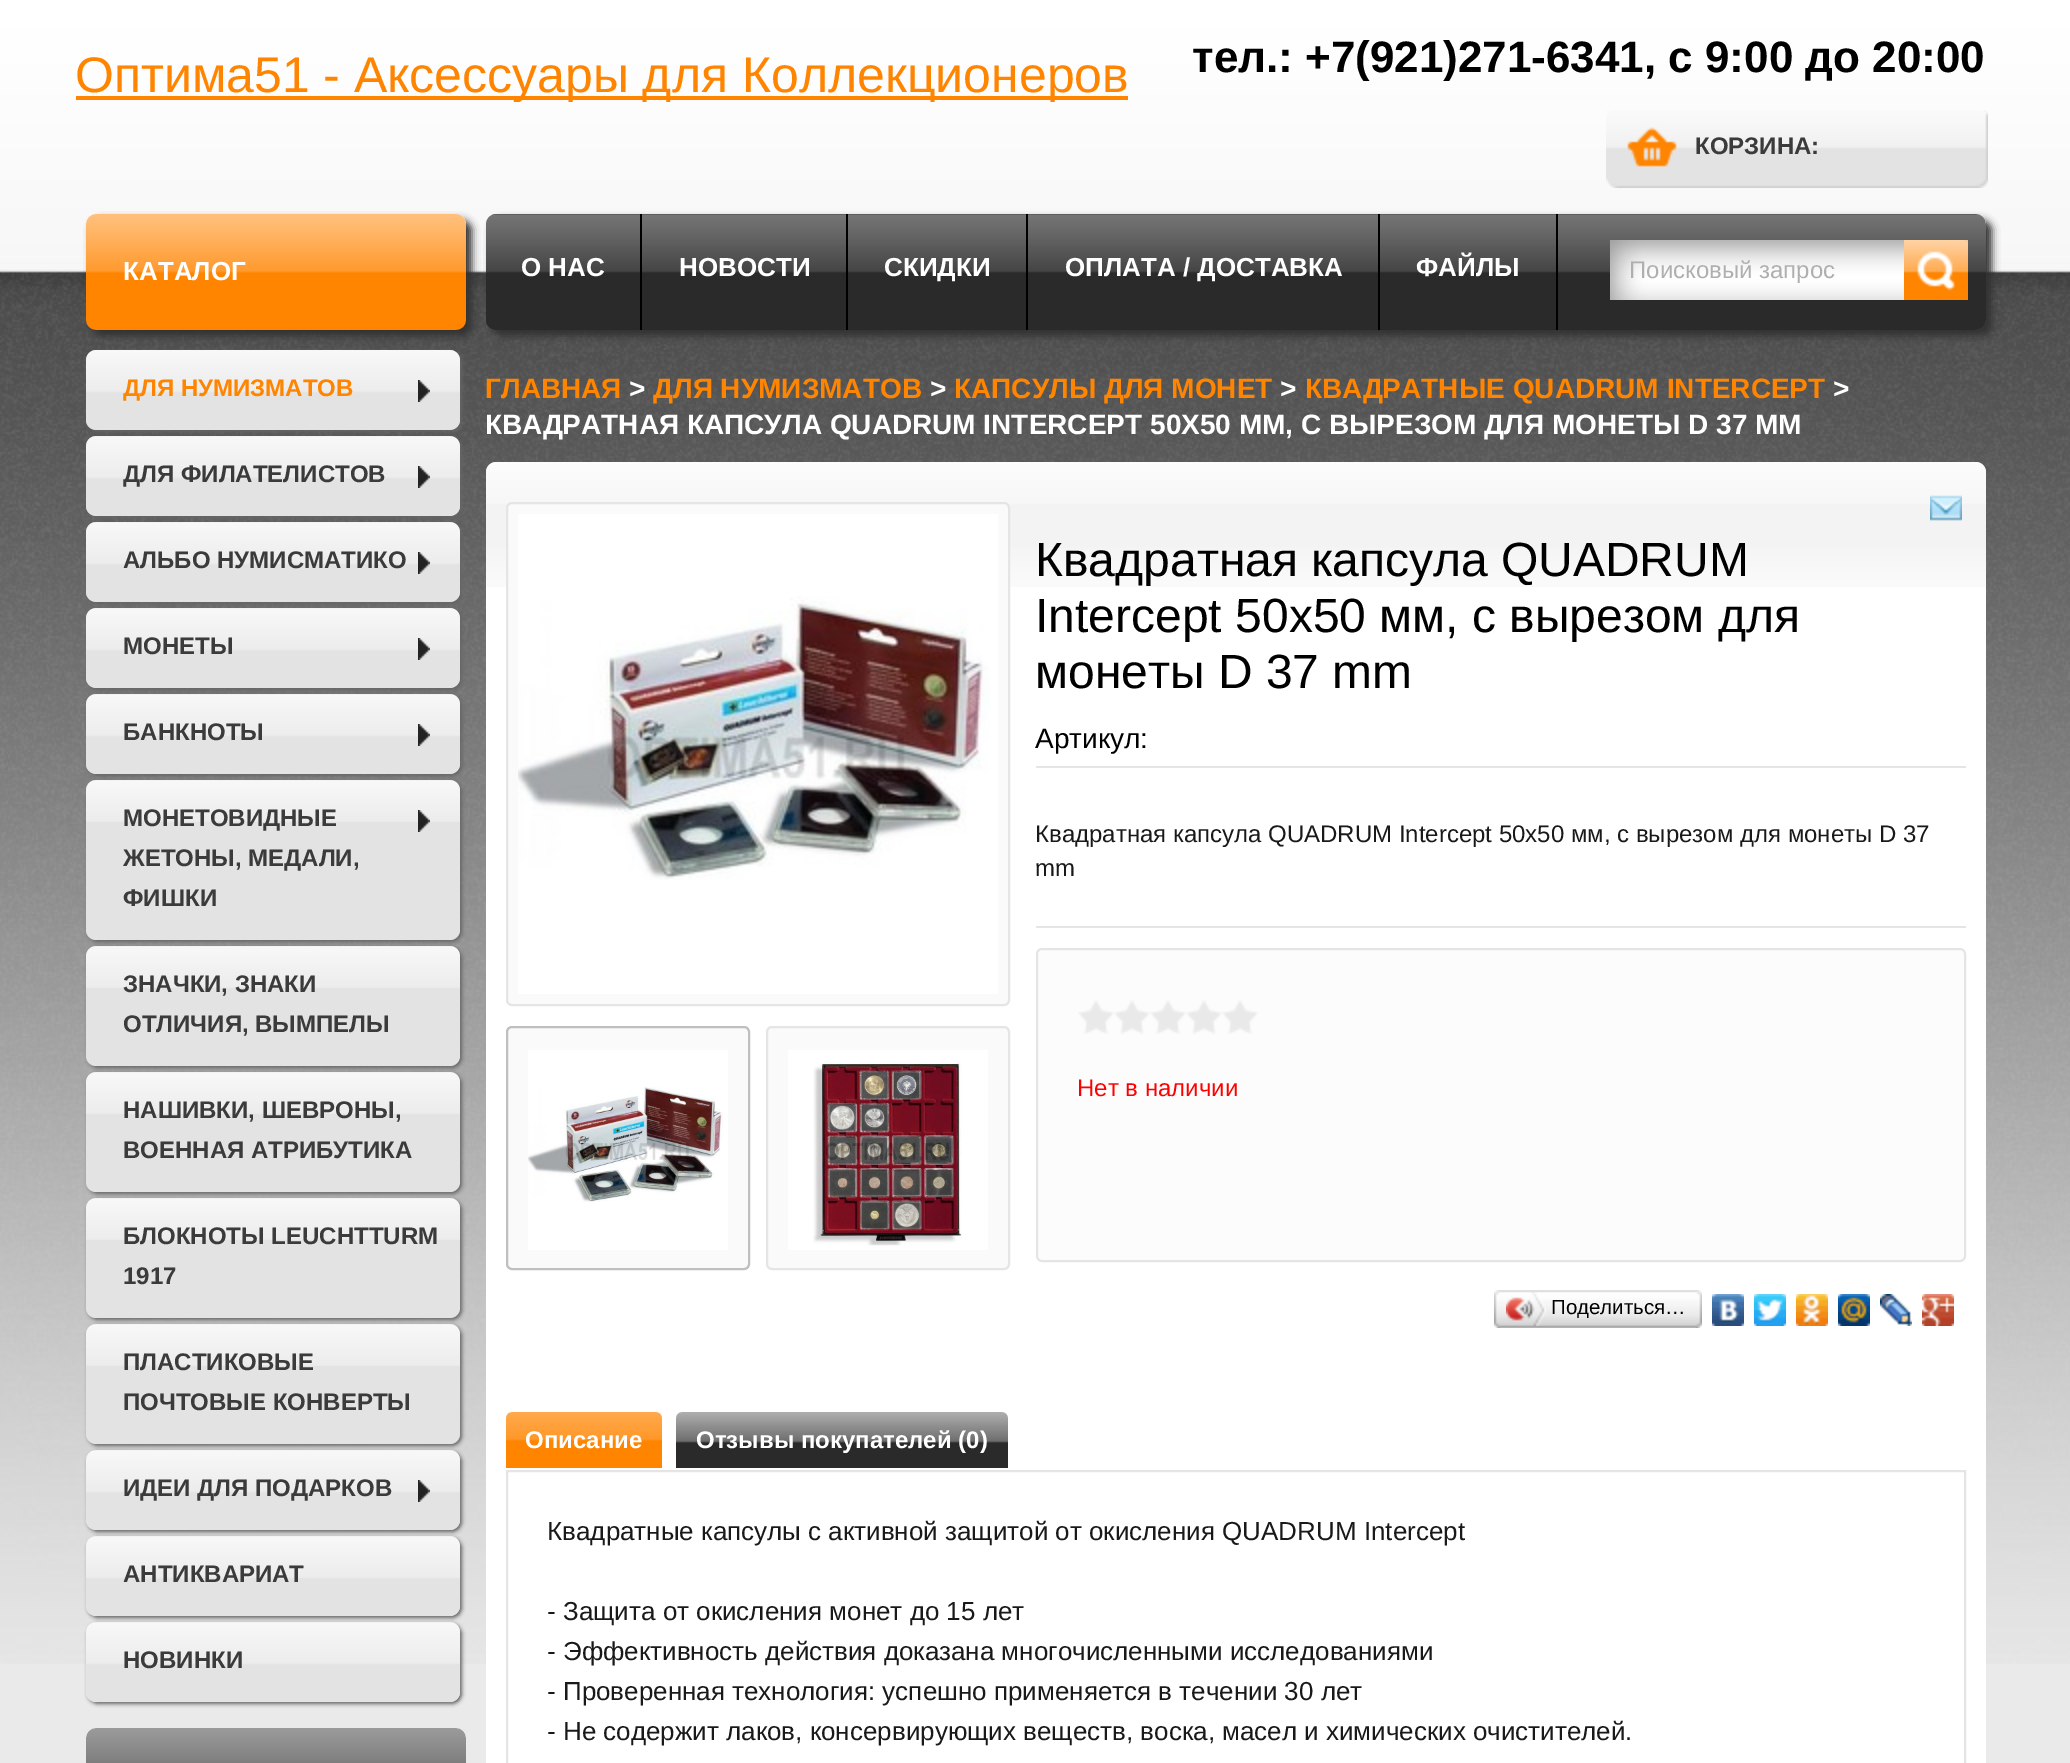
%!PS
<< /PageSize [2070 1763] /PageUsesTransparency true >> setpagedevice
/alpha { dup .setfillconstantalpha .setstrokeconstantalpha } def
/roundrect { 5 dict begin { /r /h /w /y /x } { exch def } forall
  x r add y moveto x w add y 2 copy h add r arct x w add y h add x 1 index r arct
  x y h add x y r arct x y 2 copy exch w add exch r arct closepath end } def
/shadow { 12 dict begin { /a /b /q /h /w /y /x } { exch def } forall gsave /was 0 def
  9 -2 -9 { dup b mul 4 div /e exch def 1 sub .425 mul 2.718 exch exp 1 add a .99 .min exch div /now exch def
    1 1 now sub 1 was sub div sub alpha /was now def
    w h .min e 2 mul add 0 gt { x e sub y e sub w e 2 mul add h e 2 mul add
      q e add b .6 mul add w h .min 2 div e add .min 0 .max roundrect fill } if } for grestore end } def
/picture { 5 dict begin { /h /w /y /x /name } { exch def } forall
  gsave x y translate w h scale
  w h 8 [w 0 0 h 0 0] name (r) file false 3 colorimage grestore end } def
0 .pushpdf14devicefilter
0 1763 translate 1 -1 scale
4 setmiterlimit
0.918 setgray
0 0 2070 1763 rectfill
(img1.rgb) 0 0 2070 1664 picture
1 0.518 0 setrgbcolor
76 96 1052 4 rectfill
gsave
76 46 1200 56 rectclip
/LiberationSans-Regular [50 0 0 -50 0 0] selectfont
75 92 moveto (Оптима51 - Аксессуары для Коллекционеров) show
grestore
/LiberationSans-Bold [44 0 0 -44 0 0] selectfont
0 setgray
1192 72 moveto (тел.: +7\(921\)271-6341, с 9:00 до 20:00) show
(img2.rgb) 1606 110 382 78 picture
/LiberationSans-Bold [24 0 0 -24 0 0] selectfont
0.235 0.231 0.231 setrgbcolor
1695 154 moveto (КОРЗИНА:) show
0.192 setgray
92 220 380 116 10 4 1 shadow
(img3.rgb) 86 214 380 116 picture
/LiberationSans-Bold [26 0 0 -26 0 0] selectfont
1 setgray
123 280 moveto (КАТАЛОГ) show
0.396 setgray
88 352 374 80 10 2 1 shadow
0.894 0.89 0.89 setrgbcolor
86 350 374 80 10 roundrect fill
(img4.rgb) 86 350 374 80 picture
/LiberationSans-Bold [24 0 0 -24 0 0] selectfont
1 0.518 0 setrgbcolor
123 396 moveto (ДЛЯ НУМИЗМАТОВ) show
(img5.rgb) 418 380 12 22 picture
0.396 setgray
88 438 374 80 10 2 1 shadow
0.894 0.89 0.89 setrgbcolor
86 436 374 80 10 roundrect fill
(img6.rgb) 86 436 374 80 picture
0.235 0.231 0.231 setrgbcolor
123 482 moveto (ДЛЯ ФИЛАТЕЛИСТОВ) show
(img5.rgb) 418 466 12 22 picture
0.396 setgray
88 524 374 80 10 2 1 shadow
0.894 0.89 0.89 setrgbcolor
86 522 374 80 10 roundrect fill
(img7.rgb) 86 522 374 80 picture
0.235 0.231 0.231 setrgbcolor
123 568 moveto (АЛЬБО НУМИСМАТИКО) show
(img5.rgb) 418 552 12 22 picture
0.396 setgray
88 610 374 80 10 2 1 shadow
0.894 0.89 0.89 setrgbcolor
86 608 374 80 10 roundrect fill
(img8.rgb) 86 608 374 80 picture
0.235 0.231 0.231 setrgbcolor
123 654 moveto (МОНЕТЫ) show
(img5.rgb) 418 638 12 22 picture
0.396 setgray
88 696 374 80 10 2 1 shadow
0.894 0.89 0.89 setrgbcolor
86 694 374 80 10 roundrect fill
(img9.rgb) 86 694 374 80 picture
0.235 0.231 0.231 setrgbcolor
123 740 moveto (БАНКНОТЫ) show
(img5.rgb) 418 724 12 22 picture
0.396 setgray
88 782 374 160 10 2 1 shadow
0.894 0.89 0.89 setrgbcolor
86 780 374 160 10 roundrect fill
(img10.rgb) 86 780 374 42 picture
0.235 0.231 0.231 setrgbcolor
123 826 moveto (МОНЕТОВИДНЫЕ) show
123 866 moveto (ЖЕТОНЫ, МЕДАЛИ,) show
123 906 moveto (ФИШКИ) show
(img11.rgb) 418 810 12 22 picture
0.396 setgray
88 948 374 120 10 2 1 shadow
0.894 0.89 0.89 setrgbcolor
86 946 374 120 10 roundrect fill
(img12.rgb) 86 946 374 42 picture
0.235 0.231 0.231 setrgbcolor
123 992 moveto (ЗНАЧКИ, ЗНАКИ) show
123 1032 moveto (ОТЛИЧИЯ, ВЫМПЕЛЫ) show
0.396 setgray
88 1074 374 120 10 2 1 shadow
0.894 0.89 0.89 setrgbcolor
86 1072 374 120 10 roundrect fill
(img13.rgb) 86 1072 374 42 picture
0.235 0.231 0.231 setrgbcolor
123 1118 moveto (НАШИВКИ, ШЕВРОНЫ,) show
123 1158 moveto (ВОЕННАЯ АТРИБУТИКА) show
0.396 setgray
88 1200 374 120 10 2 1 shadow
0.894 0.89 0.89 setrgbcolor
86 1198 374 120 10 roundrect fill
(img14.rgb) 86 1198 374 42 picture
0.235 0.231 0.231 setrgbcolor
123 1244 moveto (БЛОКНОТЫ LEUCHTTURM) show
123 1284 moveto (1917) show
0.396 setgray
88 1326 374 120 10 2 1 shadow
0.894 0.89 0.89 setrgbcolor
86 1324 374 120 10 roundrect fill
(img15.rgb) 86 1324 374 42 picture
0.235 0.231 0.231 setrgbcolor
123 1370 moveto (ПЛАСТИКОВЫЕ) show
123 1410 moveto (ПОЧТОВЫЕ КОНВЕРТЫ) show
0.396 setgray
88 1452 374 80 10 2 1 shadow
0.894 0.89 0.89 setrgbcolor
86 1450 374 80 10 roundrect fill
(img16.rgb) 86 1450 374 80 picture
0.235 0.231 0.231 setrgbcolor
123 1496 moveto (ИДЕИ ДЛЯ ПОДАРКОВ) show
(img5.rgb) 418 1480 12 22 picture
0.396 setgray
88 1538 374 80 10 2 1 shadow
0.894 0.89 0.89 setrgbcolor
86 1536 374 80 10 roundrect fill
(img17.rgb) 86 1536 374 80 picture
0.235 0.231 0.231 setrgbcolor
123 1582 moveto (АНТИКВАРИАТ) show
0.396 setgray
88 1624 374 80 10 2 1 shadow
0.894 0.89 0.89 setrgbcolor
86 1622 374 80 10 roundrect fill
(img18.rgb) 86 1622 374 80 picture
0.235 0.231 0.231 setrgbcolor
123 1668 moveto (НОВИНКИ) show
1 setgray
86 1728 380 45 10 roundrect fill
(img19.rgb) 86 1728 380 35 picture
0.192 setgray
492 220 1500 116 10 4 1 shadow
(img20.rgb) 486 214 1500 116 picture
0 setgray
640 214 2 116 rectfill
(img21.rgb) 486 214 10 116 picture
/LiberationSans-Bold [26 0 0 -26 0 0] selectfont
1 setgray
521 276 moveto (О НАС) show
0 setgray
846 214 2 116 rectfill
1 setgray
679 276 moveto (НОВОСТИ) show
0 setgray
1026 214 2 116 rectfill
1 setgray
884 276 moveto (СКИДКИ) show
0 setgray
1378 214 2 116 rectfill
1 setgray
1065 276 moveto (ОПЛАТА / ДОСТАВКА) show
0 setgray
1556 214 2 116 rectfill
1 setgray
1416 276 moveto (ФАЙЛЫ) show
(img22.rgb) 1610 240 294 60 picture
/LiberationSans-Regular [24 0 0 -24 0 0] selectfont
0.686 setgray
1629 278 moveto (Поисковый запрос) show
(img23.rgb) 1904 240 64 60 picture
/LiberationSans-Bold [28 0 0 -28 0 0] selectfont
1 0.518 0 setrgbcolor
485 398 moveto (ГЛАВНАЯ) show
1 setgray
629 398 moveto (>) show
1 0.518 0 setrgbcolor
653 398 moveto (ДЛЯ НУМИЗМАТОВ) show
1 setgray
930 398 moveto (>) show
1 0.518 0 setrgbcolor
954 398 moveto (КАПСУЛЫ ДЛЯ МОНЕТ) show
1 setgray
1280 398 moveto (>) show
1 0.518 0 setrgbcolor
1305 398 moveto (КВАДРАТНЫЕ QUADRUM INTERCEPT) show
1 setgray
1833 398 moveto (>) show
485 434 moveto (КВАДРАТНАЯ КАПСУЛА QUADRUM INTERCEPT 50Х50 ММ, С ВЫРЕЗОМ ДЛЯ МОНЕТЫ D 37 MM) show
486 462 1500 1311 10 roundrect fill
(img24.rgb) 486 462 1500 125 picture
(img25.rgb) 1930 495 32 26 picture
0.98 setgray
507 503 502 502 5 roundrect gsave fill grestore
0.898 setgray
2 setlinewidth
stroke
1 setgray
518 514 480 480 rectfill
(img26.rgb) 518 596 472 284 picture
0.98 setgray
507 1027 242 242 5 roundrect gsave fill grestore
0.753 0.745 0.745 setrgbcolor
stroke
1 setgray
528 1050 200 200 rectfill
(img27.rgb) 528 1087 196 115 picture
0.98 setgray
767 1027 242 242 5 roundrect gsave fill grestore
0.898 setgray
stroke
1 setgray
788 1050 200 200 rectfill
(img28.rgb) 813 1061 149 185 picture
/LiberationSans-Regular [48 0 0 -48 0 0] selectfont
0 setgray
1035 576 moveto (Квадратная капсула QUADRUM) show
1035 632 moveto (Intercept 50х50 мм, с вырезом для) show
1035 688 moveto (монеты D 37 mm) show
0.898 setgray
1036 766 930 2 rectfill
/LiberationSans-Regular [28 0 0 -28 0 0] selectfont
0 setgray
1035 748 moveto (Артикул:) show
0.898 setgray
1036 926 930 2 rectfill
/LiberationSans-Regular [24 0 0 -24 0 0] selectfont
0.098 setgray
1035 842 moveto (Квадратная капсула QUADRUM Intercept 50х50 мм, с вырезом для монеты D 37) show
1035 876 moveto (mm) show
0.988 setgray
1037 949 928 312 5 roundrect gsave fill grestore
0.898 setgray
stroke
(img29.rgb) 1078 1000 36 34 picture
(img29.rgb) 1114 1000 36 34 picture
(img29.rgb) 1150 1000 36 34 picture
(img29.rgb) 1186 1000 36 34 picture
(img29.rgb) 1222 1000 36 34 picture
1 0 0 setrgbcolor
1077 1096 moveto (Нет в наличии) show
(img30.rgb) 1500 1290 196 38 picture
(img31.rgb) 1494 1290 6 38 picture
(img32.rgb) 1506 1292 40 34 picture
/LiberationSans-Regular [20.5 0 0 -20.5 0 0] selectfont
0 setgray
1551 1314 moveto (Поделиться…) show
(img33.rgb) 1696 1290 6 38 picture
(img34.rgb) 1712 1294 32 32 picture
(img35.rgb) 1754 1294 32 32 picture
(img36.rgb) 1796 1294 32 32 picture
(img37.rgb) 1838 1294 32 32 picture
(img38.rgb) 1880 1294 32 32 picture
(img39.rgb) 1922 1294 32 32 picture
(img40.rgb) 506 1412 156 56 picture
(img41.rgb) 676 1412 332 56 picture
/LiberationSans-Bold [24 0 0 -24 0 0] selectfont
1 setgray
525 1448 moveto (Описание) show
696 1448 moveto (Отзывы покупателей \(0\)) show
0.898 setgray
507 1471 1458 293 rectstroke
/LiberationSans-Regular [26 0 0 -26 0 0] selectfont
0.098 setgray
547 1540 moveto (Квадратные капсулы с активной защитой от окисления QUADRUM Intercept) show
547 1620 moveto (- Защита от окисления монет до 15 лет) show
547 1660 moveto (- Эффективность действия доказана многочисленными исследованиями) show
547 1700 moveto (- Проверенная технология: успешно применяется в течении 30 лет) show
547 1740 moveto (- Не содержит лаков, консервирующих веществ, воска, масел и химических очистителей.) show
.poppdf14devicefilter showpage
